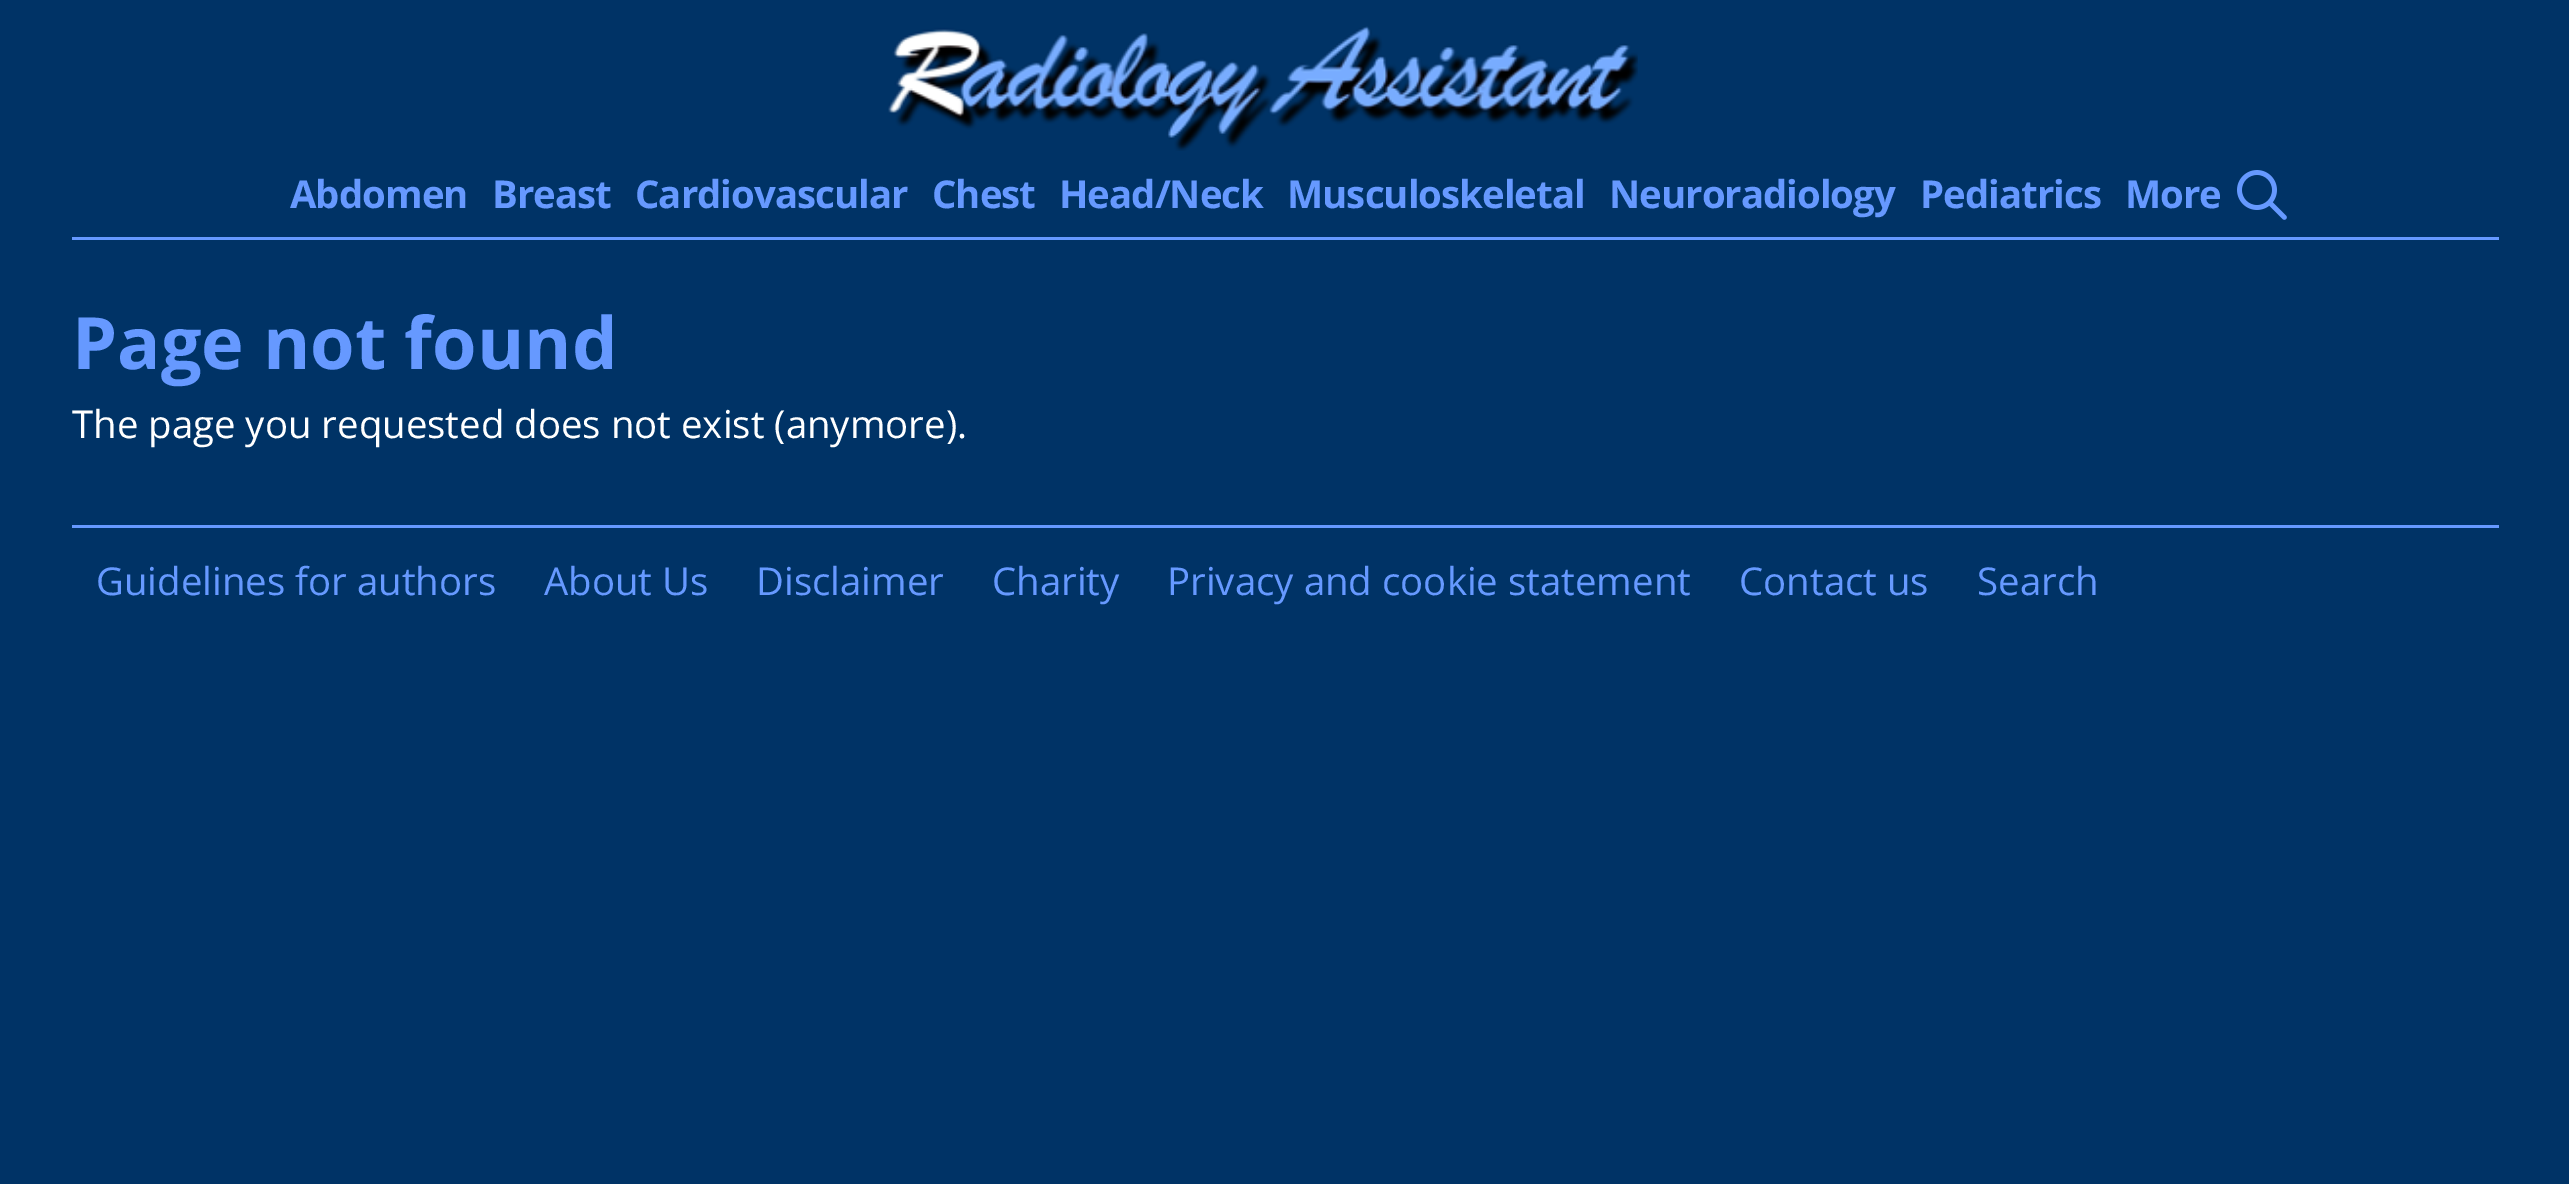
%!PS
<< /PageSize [2569 1184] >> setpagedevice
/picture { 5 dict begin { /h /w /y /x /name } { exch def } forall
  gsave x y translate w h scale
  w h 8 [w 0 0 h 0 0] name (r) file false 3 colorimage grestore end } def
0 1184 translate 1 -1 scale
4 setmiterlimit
0 0.2 0.4 setrgbcolor
0 0 2569 1184 rectfill
0.4 0.6 1 setrgbcolor
72 237 2427 3 rectfill
(img1.rgb) 888 26 750 125 picture
/OpenSans-Bold [38.4 0 0 -38.4 0 0] selectfont
290 208 moveto -1 0 (Abdomen) ashow
492 208 moveto -1 0 (Breast) ashow
635 208 moveto -1 0 (Cardiovascular) ashow
932 208 moveto -1 0 (Chest) ashow
1059 208 moveto -1 0 (Head/Neck) ashow
1287 208 moveto -1 0 (Musculoskeletal) ashow
1609 208 moveto -1 0 (Neuroradiology) ashow
1920 208 moveto -1 0 (Pediatrics) ashow
2125 208 moveto -1 0 (More) ashow
(img2.rgb) 2237 170 50 50 picture
/OpenSans-Bold [72 0 0 -72 0 0] selectfont
72 369 moveto (Page not found) show
/OpenSans-Regular [38.4 0 0 -38.4 0 0] selectfont
1 setgray
72 438 moveto (The page you requested does not exist \(anymore\).) show
0.4 0.6 1 setrgbcolor
72 525 2427 3 rectfill
96 595 moveto (Guidelines for authors) show
544 595 moveto (About Us) show
756 595 moveto (Disclaimer) show
992 595 moveto (Charity) show
1167 595 moveto (Privacy and cookie statement) show
1739 595 moveto (Contact us) show
1977 595 moveto (Search) show
showpage
